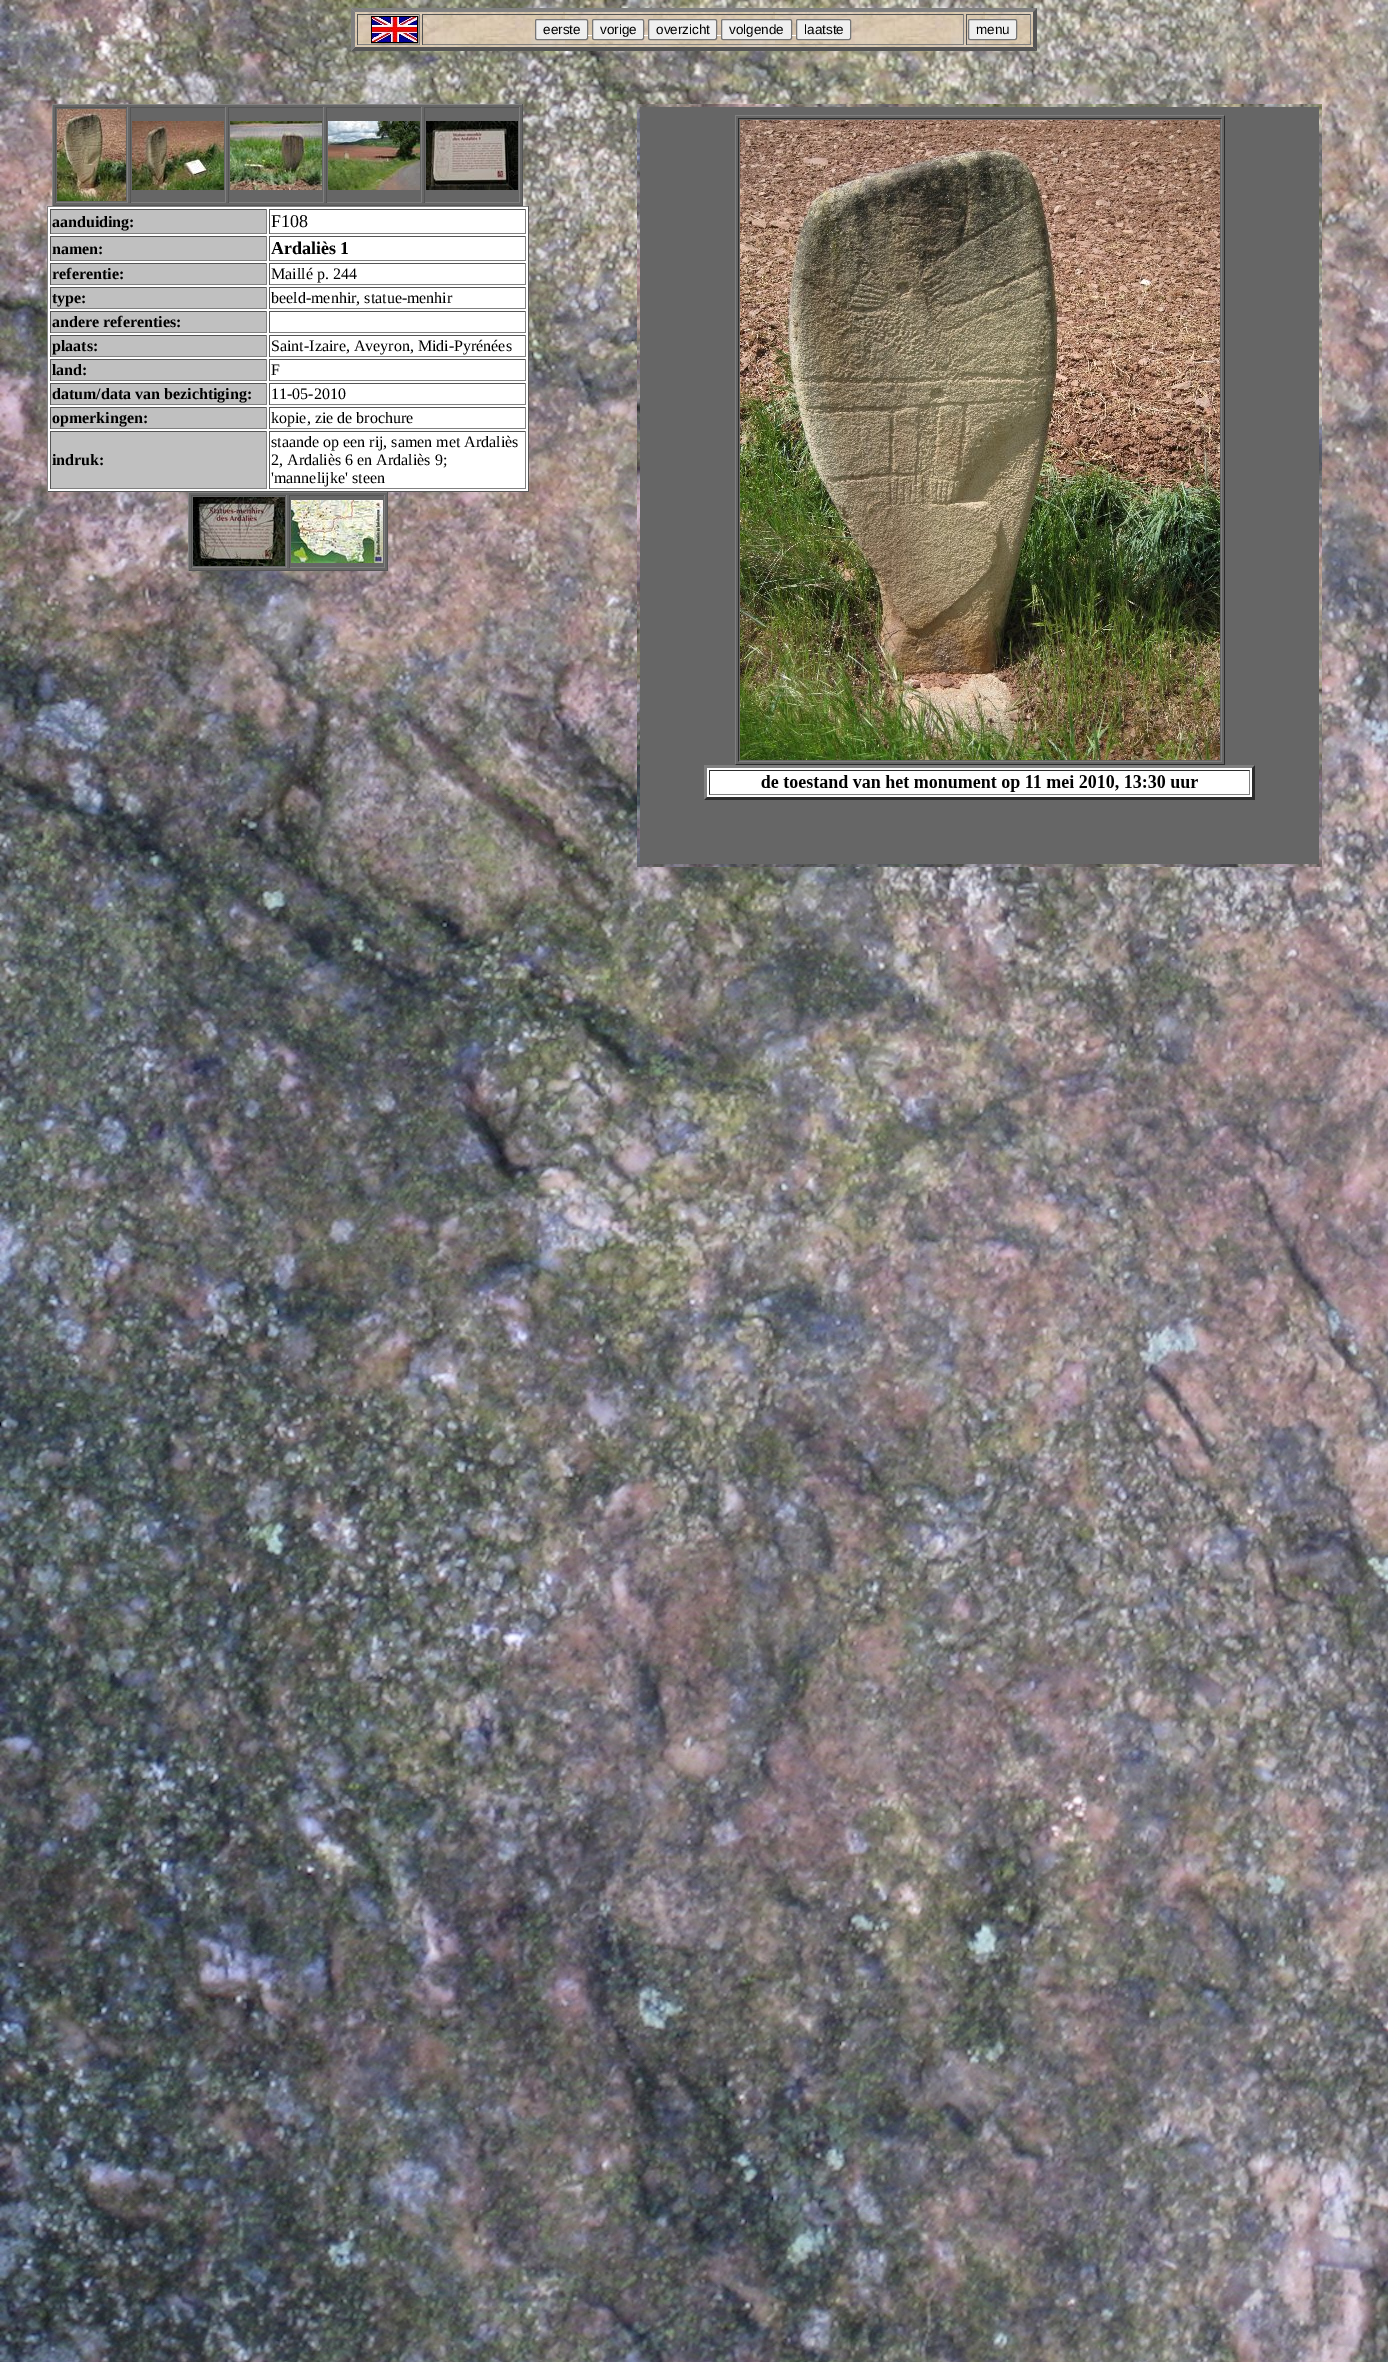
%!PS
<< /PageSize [1388 2362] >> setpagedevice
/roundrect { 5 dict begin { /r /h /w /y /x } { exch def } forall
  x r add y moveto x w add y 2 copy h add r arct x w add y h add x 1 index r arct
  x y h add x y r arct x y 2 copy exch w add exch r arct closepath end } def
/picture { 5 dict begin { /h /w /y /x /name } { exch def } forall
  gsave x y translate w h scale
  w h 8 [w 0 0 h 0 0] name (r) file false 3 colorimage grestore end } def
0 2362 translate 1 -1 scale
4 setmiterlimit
1 setgray
0 0 1388 2362 rectfill
(img1.rgb) 0 0 1388 2362 picture
(img2.rgb) 351 8 686 43 picture
0.502 setgray
newpath 351 8 moveto 1037 8 lineto 1033 12 lineto 355 12 lineto closepath fill
0.333 setgray
newpath 1037 8 moveto 1037 51 lineto 1033 47 lineto 1033 12 lineto closepath fill
newpath 1037 51 moveto 351 51 lineto 355 47 lineto 1033 47 lineto closepath fill
0.502 setgray
newpath 351 51 moveto 351 8 lineto 355 12 lineto 355 47 lineto closepath fill
0.333 setgray
357 14 63 1 rectfill
0.502 setgray
419 14 1 31 rectfill
357 44 63 1 rectfill
0.333 setgray
357 14 1 31 rectfill
0 setgray
371.5 16.5 46 26 rectstroke
(img3.rgb) 372 17 45 25 picture
0.333 setgray
422 14 542 1 rectfill
0.502 setgray
963 14 1 31 rectfill
422 44 542 1 rectfill
0.333 setgray
422 14 1 31 rectfill
0.937 setgray
535.5 19.5 52 20 1.5 roundrect gsave fill grestore
0.463 setgray
stroke
/LiberationSans-Regular [13.5 0 0 -13.5 0 0] selectfont
0 setgray
543 34 moveto (eerste) show
0.937 setgray
592.5 19.5 51 20 1.5 roundrect gsave fill grestore
0.463 setgray
stroke
0 setgray
600 34 moveto (vorige) show
0.937 setgray
648.5 19.5 68 20 1.5 roundrect gsave fill grestore
0.463 setgray
stroke
0 setgray
656 34 moveto (overzicht) show
0.937 setgray
721.5 19.5 70 20 1.5 roundrect gsave fill grestore
0.463 setgray
stroke
0 setgray
729 34 moveto (volgende) show
0.937 setgray
796.5 19.5 54 20 1.5 roundrect gsave fill grestore
0.463 setgray
stroke
0 setgray
804 34 moveto (laatste) show
1 setgray
588 35 4 1 rectfill
644 35 4 1 rectfill
717 35 4 1 rectfill
792 35 4 1 rectfill
0.333 setgray
966 14 65 1 rectfill
0.502 setgray
1030 14 1 31 rectfill
966 44 65 1 rectfill
0.333 setgray
966 14 1 31 rectfill
0.937 setgray
968.5 19.5 48 20 1.5 roundrect gsave fill grestore
0.463 setgray
stroke
0 setgray
976 34 moveto (menu) show
0.4 setgray
53 105 469 100 rectfill
0.502 setgray
52 104 471 1 rectfill
0.333 setgray
522 104 1 102 rectfill
52 205 471 1 rectfill
0.502 setgray
52 104 1 102 rectfill
0.333 setgray
55 107 73 1 rectfill
0.502 setgray
127 107 1 96 rectfill
55 202 73 1 rectfill
0.333 setgray
55 107 1 96 rectfill
(img4.rgb) 57 109 69 92 picture
130 107 96 1 rectfill
0.502 setgray
225 107 1 96 rectfill
130 202 96 1 rectfill
0.333 setgray
130 107 1 96 rectfill
(img5.rgb) 132 121 92 69 picture
228 107 96 1 rectfill
0.502 setgray
323 107 1 96 rectfill
228 202 96 1 rectfill
0.333 setgray
228 107 1 96 rectfill
(img6.rgb) 230 121 92 69 picture
326 107 96 1 rectfill
0.502 setgray
421 107 1 96 rectfill
326 202 96 1 rectfill
0.333 setgray
326 107 1 96 rectfill
(img7.rgb) 328 121 92 69 picture
424 107 96 1 rectfill
0.502 setgray
519 107 1 96 rectfill
424 202 96 1 rectfill
0.333 setgray
424 107 1 96 rectfill
(img8.rgb) 426 121 92 69 picture
1 setgray
48 207 480 284 rectfill
0.502 setgray
47 206 482 1 rectfill
0.333 setgray
528 206 1 286 rectfill
47 491 482 1 rectfill
0.502 setgray
47 206 1 286 rectfill
0.753 setgray
51 210 215 23 rectfill
0.333 setgray
50 209 217 1 rectfill
0.502 setgray
266 209 1 25 rectfill
50 233 217 1 rectfill
0.333 setgray
50 209 1 25 rectfill
/LiberationSerif-Bold [16 0 0 -16 0 0] selectfont
0 setgray
52 227 moveto (aanduiding:) show
0.333 setgray
269 209 257 1 rectfill
0.502 setgray
525 209 1 25 rectfill
269 233 257 1 rectfill
0.333 setgray
269 209 1 25 rectfill
/LiberationSerif-Regular [18 0 0 -18 0 0] selectfont
0 setgray
271 227 moveto (F108) show
0.753 setgray
51 237 215 23 rectfill
0.333 setgray
50 236 217 1 rectfill
0.502 setgray
266 236 1 25 rectfill
50 260 217 1 rectfill
0.333 setgray
50 236 1 25 rectfill
/LiberationSerif-Bold [16 0 0 -16 0 0] selectfont
0 setgray
52 254 moveto (namen:) show
0.333 setgray
269 236 257 1 rectfill
0.502 setgray
525 236 1 25 rectfill
269 260 257 1 rectfill
0.333 setgray
269 236 1 25 rectfill
/LiberationSerif-Bold [18 0 0 -18 0 0] selectfont
0 setgray
271 254 moveto (Ardaliès 1) show
0.753 setgray
51 264 215 20 rectfill
0.333 setgray
50 263 217 1 rectfill
0.502 setgray
266 263 1 22 rectfill
50 284 217 1 rectfill
0.333 setgray
50 263 1 22 rectfill
/LiberationSerif-Bold [16 0 0 -16 0 0] selectfont
0 setgray
52 279 moveto (referentie:) show
0.333 setgray
269 263 257 1 rectfill
0.502 setgray
525 263 1 22 rectfill
269 284 257 1 rectfill
0.333 setgray
269 263 1 22 rectfill
/LiberationSerif-Regular [16 0 0 -16 0 0] selectfont
0 setgray
271 279 moveto (Maillé p. 244) show
0.753 setgray
51 288 215 20 rectfill
0.333 setgray
50 287 217 1 rectfill
0.502 setgray
266 287 1 22 rectfill
50 308 217 1 rectfill
0.333 setgray
50 287 1 22 rectfill
/LiberationSerif-Bold [16 0 0 -16 0 0] selectfont
0 setgray
52 303 moveto (type:) show
0.333 setgray
269 287 257 1 rectfill
0.502 setgray
525 287 1 22 rectfill
269 308 257 1 rectfill
0.333 setgray
269 287 1 22 rectfill
/LiberationSerif-Regular [16 0 0 -16 0 0] selectfont
0 setgray
271 303 moveto (beeld-menhir, statue-menhir) show
0.753 setgray
51 312 215 20 rectfill
0.333 setgray
50 311 217 1 rectfill
0.502 setgray
266 311 1 22 rectfill
50 332 217 1 rectfill
0.333 setgray
50 311 1 22 rectfill
/LiberationSerif-Bold [16 0 0 -16 0 0] selectfont
0 setgray
52 327 moveto (andere referenties:) show
0.333 setgray
269 311 257 1 rectfill
0.502 setgray
525 311 1 22 rectfill
269 332 257 1 rectfill
0.333 setgray
269 311 1 22 rectfill
0.753 setgray
51 336 215 20 rectfill
0.333 setgray
50 335 217 1 rectfill
0.502 setgray
266 335 1 22 rectfill
50 356 217 1 rectfill
0.333 setgray
50 335 1 22 rectfill
0 setgray
52 351 moveto (plaats:) show
0.333 setgray
269 335 257 1 rectfill
0.502 setgray
525 335 1 22 rectfill
269 356 257 1 rectfill
0.333 setgray
269 335 1 22 rectfill
/LiberationSerif-Regular [16 0 0 -16 0 0] selectfont
0 setgray
271 351 moveto (Saint-Izaire, Aveyron, Midi-Pyrénées) show
0.753 setgray
51 360 215 20 rectfill
0.333 setgray
50 359 217 1 rectfill
0.502 setgray
266 359 1 22 rectfill
50 380 217 1 rectfill
0.333 setgray
50 359 1 22 rectfill
/LiberationSerif-Bold [16 0 0 -16 0 0] selectfont
0 setgray
52 375 moveto (land:) show
0.333 setgray
269 359 257 1 rectfill
0.502 setgray
525 359 1 22 rectfill
269 380 257 1 rectfill
0.333 setgray
269 359 1 22 rectfill
/LiberationSerif-Regular [16 0 0 -16 0 0] selectfont
0 setgray
271 375 moveto (F) show
0.753 setgray
51 384 215 20 rectfill
0.333 setgray
50 383 217 1 rectfill
0.502 setgray
266 383 1 22 rectfill
50 404 217 1 rectfill
0.333 setgray
50 383 1 22 rectfill
/LiberationSerif-Bold [16 0 0 -16 0 0] selectfont
0 setgray
52 399 moveto (datum/data van bezichtiging:) show
0.333 setgray
269 383 257 1 rectfill
0.502 setgray
525 383 1 22 rectfill
269 404 257 1 rectfill
0.333 setgray
269 383 1 22 rectfill
/LiberationSerif-Regular [16 0 0 -16 0 0] selectfont
0 setgray
271 399 moveto (11-05-2010) show
0.753 setgray
51 408 215 20 rectfill
0.333 setgray
50 407 217 1 rectfill
0.502 setgray
266 407 1 22 rectfill
50 428 217 1 rectfill
0.333 setgray
50 407 1 22 rectfill
/LiberationSerif-Bold [16 0 0 -16 0 0] selectfont
0 setgray
52 423 moveto (opmerkingen:) show
0.333 setgray
269 407 257 1 rectfill
0.502 setgray
525 407 1 22 rectfill
269 428 257 1 rectfill
0.333 setgray
269 407 1 22 rectfill
/LiberationSerif-Regular [16 0 0 -16 0 0] selectfont
0 setgray
271 423 moveto (kopie, zie de brochure) show
0.753 setgray
51 432 215 56 rectfill
0.333 setgray
50 431 217 1 rectfill
0.502 setgray
266 431 1 58 rectfill
50 488 217 1 rectfill
0.333 setgray
50 431 1 58 rectfill
/LiberationSerif-Bold [16 0 0 -16 0 0] selectfont
0 setgray
52 465 moveto (indruk:) show
0.333 setgray
269 431 257 1 rectfill
0.502 setgray
525 431 1 58 rectfill
269 488 257 1 rectfill
0.333 setgray
269 431 1 58 rectfill
/LiberationSerif-Regular [16 0 0 -16 0 0] selectfont
0 setgray
271 447 moveto (staande op een rij, samen met Ardaliès) show
271 465 moveto (2, Ardaliès 6 en Ardaliès 9;) show
271 483 moveto ('mannelijke' steen) show
0.4 setgray
189 493 198 77 rectfill
0.502 setgray
188 492 200 1 rectfill
0.333 setgray
387 492 1 79 rectfill
188 570 200 1 rectfill
0.502 setgray
188 492 1 79 rectfill
0.333 setgray
191 495 96 1 rectfill
0.502 setgray
286 495 1 73 rectfill
191 567 96 1 rectfill
0.333 setgray
191 495 1 73 rectfill
(img9.rgb) 193 497 92 69 picture
289 495 96 1 rectfill
0.502 setgray
384 495 1 73 rectfill
289 567 96 1 rectfill
0.333 setgray
289 495 1 73 rectfill
(img10.rgb) 291 500 92 63 picture
(img11.rgb) 637 104 685 763 picture
(img12.rgb) 640 107 679 757 picture
showpage
